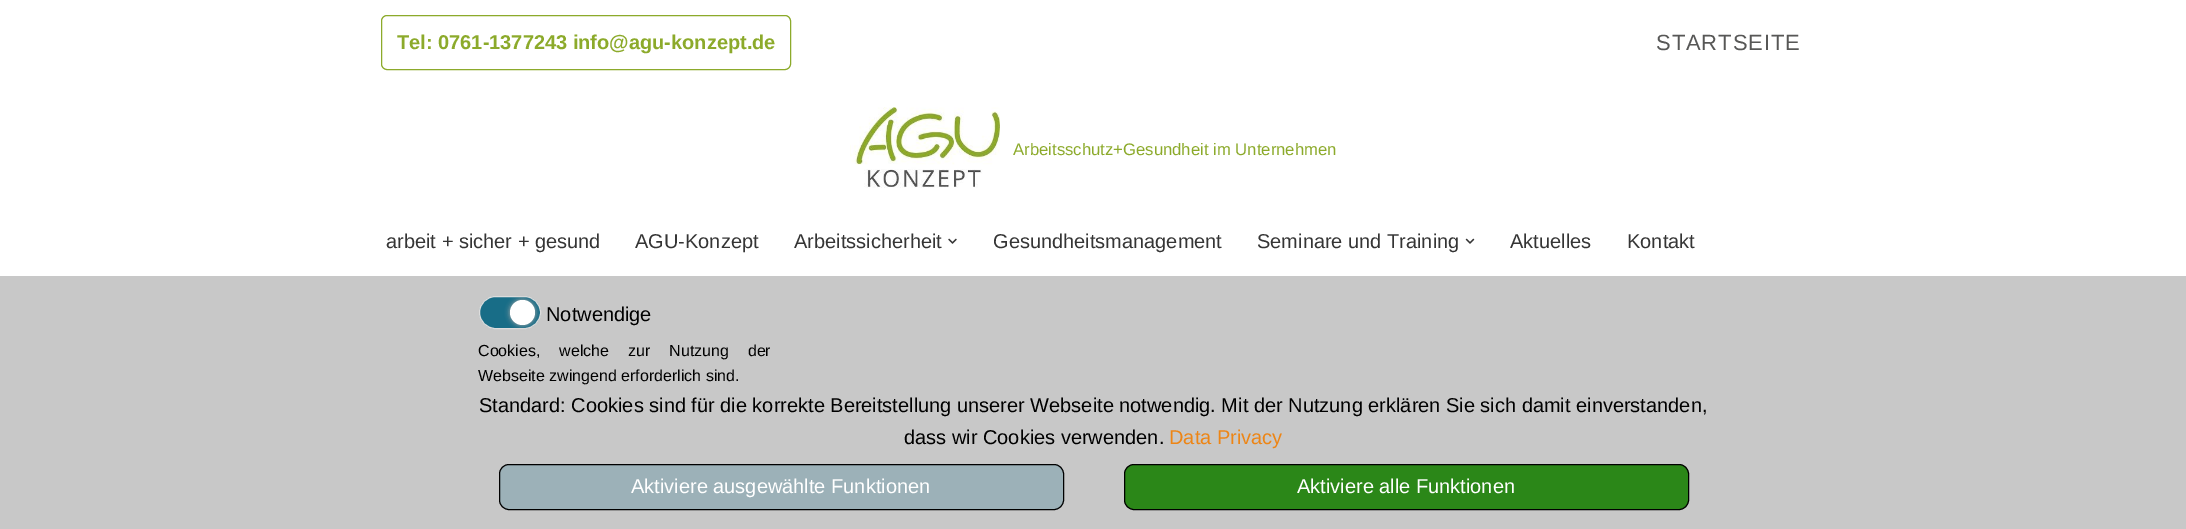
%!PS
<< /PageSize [2186 529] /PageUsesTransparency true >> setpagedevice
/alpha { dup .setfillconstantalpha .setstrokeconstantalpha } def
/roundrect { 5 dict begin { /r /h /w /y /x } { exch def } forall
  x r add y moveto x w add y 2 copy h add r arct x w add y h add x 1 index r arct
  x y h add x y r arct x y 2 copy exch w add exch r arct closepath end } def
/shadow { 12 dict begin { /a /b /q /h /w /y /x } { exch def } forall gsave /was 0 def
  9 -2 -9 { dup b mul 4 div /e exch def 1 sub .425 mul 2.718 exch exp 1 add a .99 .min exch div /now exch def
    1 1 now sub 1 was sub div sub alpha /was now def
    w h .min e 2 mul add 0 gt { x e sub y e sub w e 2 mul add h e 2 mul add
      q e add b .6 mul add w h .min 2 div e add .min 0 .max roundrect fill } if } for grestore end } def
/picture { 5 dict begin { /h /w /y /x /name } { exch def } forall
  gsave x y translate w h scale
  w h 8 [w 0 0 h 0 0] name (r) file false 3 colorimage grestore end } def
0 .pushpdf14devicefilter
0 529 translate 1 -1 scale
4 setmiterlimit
1 setgray
0 0 2186 529 rectfill
0.549 0.667 0.169 setrgbcolor
381.5 15.5 409 54 5.5 roundrect stroke
/LiberationSans-Bold [20 0 0 -20 0 0] selectfont
397 49 moveto (Tel: 0761-1377243 info@agu-konzept.de) show
/LiberationSans-Regular [22 0 0 -22 0 0] selectfont
0.341 0.341 0.337 setrgbcolor
1656 50 moveto 0.9 0 (STARTSEITE) ashow
(img1.rgb) 850 107 150 81 picture
/LiberationSans-Regular [16.7 0 0 -16.7 0 0] selectfont
0.549 0.667 0.169 setrgbcolor
1013 155 moveto (Arbeitsschutz+Gesundheit im Unternehmen) show
/LiberationSans-Regular [20 0 0 -20 0 0] selectfont
0.208 setgray
386 248 moveto (arbeit + sicher + gesund) show
635 248 moveto (AGU-Konzept) show
794 248 moveto (Arbeitssicherheit) show
(img2.rgb) 948 238 9 6 picture
993 248 moveto (Gesundheitsmanagement) show
1257 248 moveto (Seminare und Training) show
(img3.rgb) 1465 238 10 6 picture
1510 248 moveto (Aktuelles) show
1627 248 moveto (Kontakt) show
0.784 setgray
0 276 2186 253 rectfill
0.094 0.427 0.529 setrgbcolor
479.5 296.5 61 32 16 roundrect gsave fill grestore
0.867 setgray
stroke
0.667 setgray
510 300 25 25 12.5 2.5 1 shadow
1 setgray
newpath 522.5 312.5 12.5 0 360 arc closepath fill
0 setgray
546 321 moveto (Notwendige) show
/LiberationSans-Regular [16 0 0 -16 0 0] selectfont
478 356 moveto 14.5 0 32 (Cookies, welche zur Nutzung der) widthshow
478 381 moveto (Webseite zwingend erforderlich sind.) show
/LiberationSans-Regular [20 0 0 -20 0 0] selectfont
479 412 moveto (Standard: Cookies sind für die korrekte Bereitstellung unserer Webseite notwendig. Mit der Nutzung erklären Sie sich damit einverstanden,) show
904 444 moveto (dass wir Cookies verwenden.) show
0.929 0.522 0.082 setrgbcolor
1169 444 moveto (Data Privacy) show
0.612 0.694 0.722 setrgbcolor
499.5 464.5 564 45 9.5 roundrect gsave fill grestore
0 setgray
stroke
1 setgray
631 493 moveto (Aktiviere ausgewählte Funktionen) show
0.169 0.529 0.094 setrgbcolor
1124.5 464.5 564 45 9.5 roundrect gsave fill grestore
0 setgray
stroke
1 setgray
1297 493 moveto (Aktiviere alle Funktionen) show
.poppdf14devicefilter showpage
